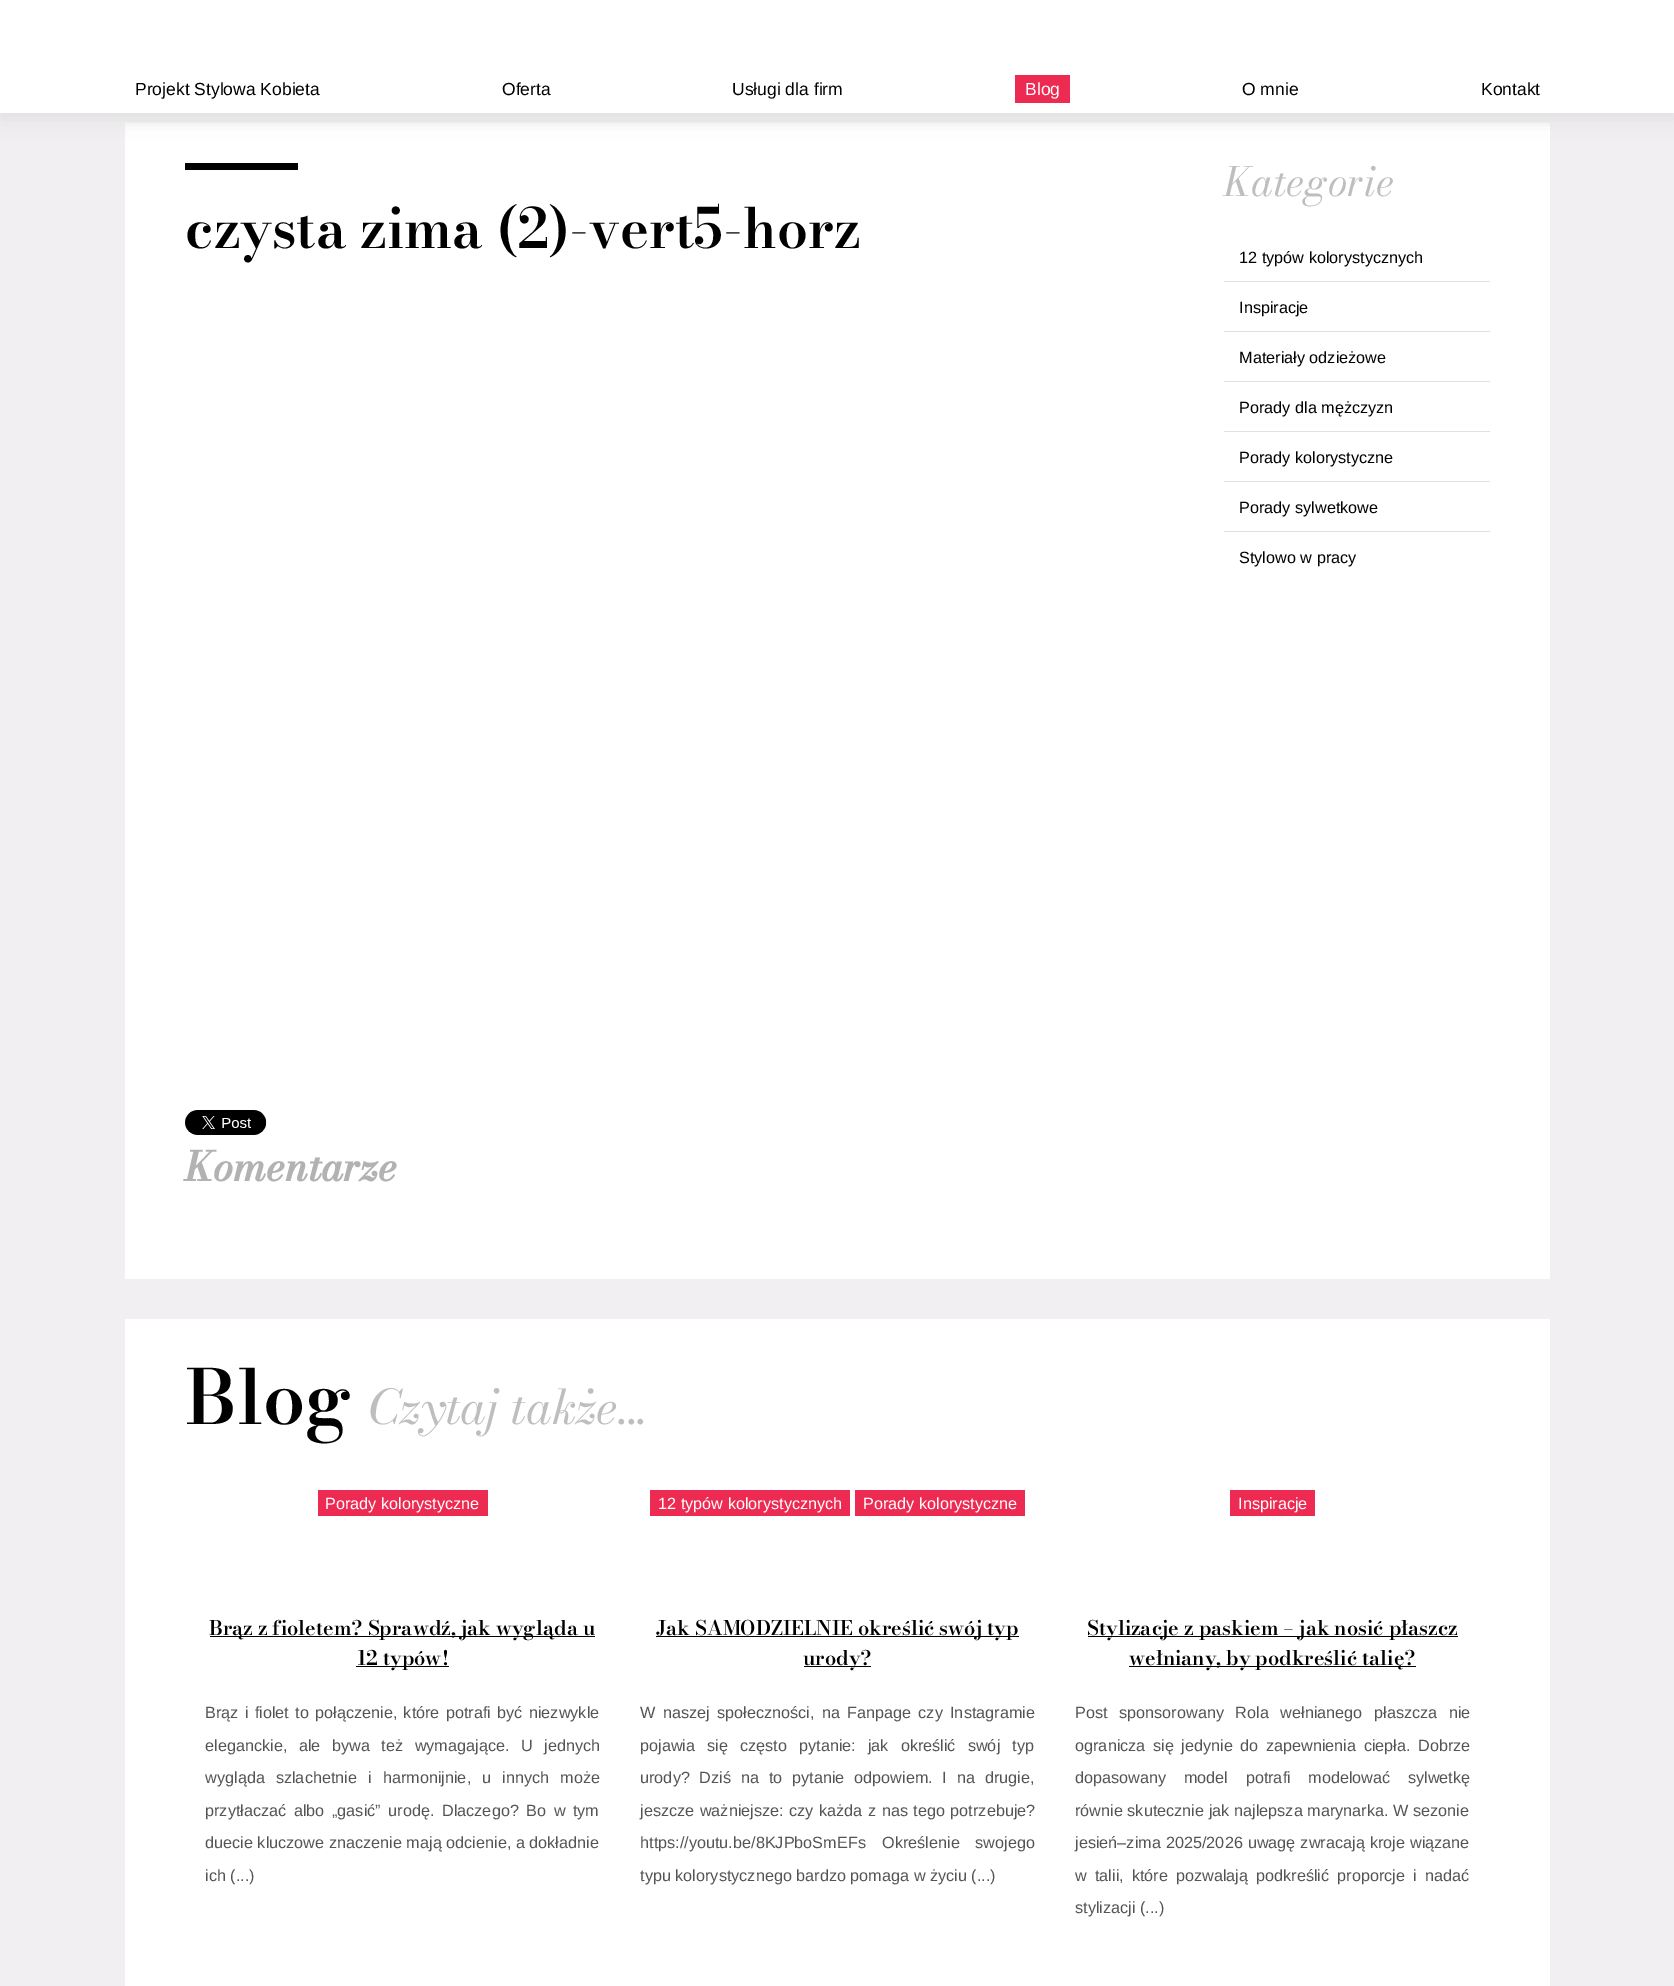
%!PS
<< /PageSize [1674 1986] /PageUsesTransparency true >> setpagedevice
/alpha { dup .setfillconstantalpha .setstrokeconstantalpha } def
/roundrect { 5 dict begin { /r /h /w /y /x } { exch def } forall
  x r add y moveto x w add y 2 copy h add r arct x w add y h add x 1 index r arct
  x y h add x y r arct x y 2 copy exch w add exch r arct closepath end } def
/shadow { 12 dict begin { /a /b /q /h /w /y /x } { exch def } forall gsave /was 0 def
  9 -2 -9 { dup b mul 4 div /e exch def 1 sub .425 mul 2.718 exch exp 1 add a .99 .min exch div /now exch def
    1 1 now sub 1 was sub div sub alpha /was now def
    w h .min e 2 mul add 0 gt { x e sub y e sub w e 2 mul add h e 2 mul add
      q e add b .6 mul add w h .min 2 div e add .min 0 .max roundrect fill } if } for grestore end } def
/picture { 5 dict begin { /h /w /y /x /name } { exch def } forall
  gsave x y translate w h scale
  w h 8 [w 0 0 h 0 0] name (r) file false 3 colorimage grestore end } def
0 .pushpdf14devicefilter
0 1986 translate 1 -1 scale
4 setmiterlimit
0.949 0.937 0.953 setrgbcolor
0 0 1674 1986 rectfill
1 setgray
125 123 1425 1156 rectfill
0.875 setgray
0 6 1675 113 0 9.5 1 shadow
1 setgray
0 0 1674 113 rectfill
/LiberationSans-Regular [17.5 0 0 -17.5 0 0] selectfont
0 setgray
135 95 moveto (Projekt Stylowa Kobieta) show
502 95 moveto (Oferta) show
732 95 moveto (Usługi dla firm) show
0.929 0.169 0.322 setrgbcolor
1015 75 55 28 rectfill
1 setgray
1025 95 moveto (Blog) show
0 setgray
1242 95 moveto (O mnie) show
1481 95 moveto (Kontakt) show
185 163 113 7 rectfill
/BodoniModa-SemiBold [55 0 0 -55 0 0] selectfont
185 248 moveto (czysta zima \(2\)-vert5-horz) show
(img1.rgb) 185 1110 82 25 picture
/BodoniModa-BoldItalic [40 0 0 -40 0 0] selectfont
0.698 setgray
185 1181 moveto (Komentarze) show
/BodoniModa-Italic [40 0 0 -40 0 0] selectfont
0.749 0.741 0.741 setrgbcolor
1224 196 moveto (Kategorie) show
0.886 0.882 0.882 setrgbcolor
1224 281 266 1 rectfill
/LiberationSans-Regular [16.25 0 0 -16.25 0 0] selectfont
0 setgray
1239 263 moveto (12 typów kolorystycznych) show
0.886 0.882 0.882 setrgbcolor
1224 331 266 1 rectfill
0 setgray
1239 313 moveto (Inspiracje) show
0.886 0.882 0.882 setrgbcolor
1224 381 266 1 rectfill
0 setgray
1239 363 moveto (Materiały odzieżowe) show
0.886 0.882 0.882 setrgbcolor
1224 431 266 1 rectfill
0 setgray
1239 413 moveto (Porady dla mężczyzn) show
0.886 0.882 0.882 setrgbcolor
1224 481 266 1 rectfill
0 setgray
1239 463 moveto (Porady kolorystyczne) show
0.886 0.882 0.882 setrgbcolor
1224 531 266 1 rectfill
0 setgray
1239 513 moveto (Porady sylwetkowe) show
1239 563 moveto (Stylowo w pracy) show
1 setgray
125 1319 1425 667 rectfill
/BodoniModa-SemiBold [75 0 0 -75 0 0] selectfont
0 setgray
185 1424 moveto (Blog) show
/BodoniModa-Italic [47.5 0 0 -47.5 0 0] selectfont
0.749 0.741 0.741 setrgbcolor
368 1424 moveto (Czytaj także...) show
0.929 0.169 0.322 setrgbcolor
318 1490 170 26 rectfill
/LiberationSans-Regular [16.25 0 0 -16.25 0 0] selectfont
1 setgray
325 1509 moveto (Porady kolorystyczne) show
0 setgray
210 1636 385 1 rectfill
/BodoniModa-SemiBold [20 0 0 -20 0 0] selectfont
209 1635 moveto (Brąz z fioletem? Sprawdź, jak wygląda u) show
356 1666 93 1 rectfill
357 1665 moveto (12 typów!) show
/LiberationSans-Regular [16.25 0 0 -16.25 0 0] selectfont
0.329 setgray
205 1718 moveto 1.75 0 32 (Brąz i fiolet to połączenie, które potrafi być niezwykle) widthshow
205 1751 moveto 7 0 32 (eleganckie, ale bywa też wymagające. U jednych) widthshow
205 1783 moveto 6.5 0 32 (wygląda szlachetnie i harmonijnie, u innych może) widthshow
205 1816 moveto 3 0 32 (przytłaczać albo „gasić” urodę. Dlaczego? Bo w tym) widthshow
205 1848 moveto (duecie kluczowe znaczenie mają odcienie, a dokładnie) show
205 1881 moveto (ich \(...\)) show
0.929 0.169 0.322 setrgbcolor
650 1490 200 26 rectfill
1 setgray
658 1509 moveto (12 typów kolorystycznych) show
0.929 0.169 0.322 setrgbcolor
855 1490 170 26 rectfill
1 setgray
863 1509 moveto (Porady kolorystyczne) show
0 setgray
656 1636 363 1 rectfill
/BodoniModa-SemiBold [20 0 0 -20 0 0] selectfont
656 1635 moveto (Jak SAMODZIELNIE określić swój typ) show
804 1666 67 1 rectfill
803 1665 moveto (urody?) show
/LiberationSans-Regular [16.25 0 0 -16.25 0 0] selectfont
0.329 setgray
640 1718 moveto 2.75 0 32 (W naszej społeczności, na Fanpage czy Instagramie) widthshow
640 1751 moveto 7.5 0 32 (pojawia się często pytanie: jak określić swój typ) widthshow
640 1783 moveto 5.25 0 32 (urody? Dziś na to pytanie odpowiem. I na drugie,) widthshow
640 1816 moveto 1 0 32 (jeszcze ważniejsze: czy każda z nas tego potrzebuje?) widthshow
640 1848 moveto (https://youtu.be/8KJPboSmEFs) show
882 1848 moveto 11 0 32 (Określenie swojego) widthshow
640 1881 moveto (typu kolorystycznego bardzo pomaga w życiu \(...\)) show
0.929 0.169 0.322 setrgbcolor
1230 1490 85 26 rectfill
1 setgray
1238 1509 moveto (Inspiracje) show
0 setgray
1088 1636 370 1 rectfill
/BodoniModa-SemiBold [20 0 0 -20 0 0] selectfont
1087 1635 moveto (Stylizacje z paskiem – jak nosić płaszcz) show
1129 1666 287 1 rectfill
1129 1665 moveto (wełniany, by podkreślić talię?) show
/LiberationSans-Regular [16.25 0 0 -16.25 0 0] selectfont
0.329 setgray
1075 1718 moveto 7 0 32 (Post sponsorowany Rola wełnianego płaszcza nie) widthshow
1075 1751 moveto 3 0 32 (ogranicza się jedynie do zapewnienia ciepła. Dobrze) widthshow
1075 1783 moveto 13 0 32 (dopasowany model potrafi modelować sylwetkę) widthshow
1075 1816 moveto (równie skutecznie jak najlepsza marynarka. W sezonie) show
1075 1848 moveto 0.5 0 32 (jesień–zima 2025/2026 uwagę zwracają kroje wiązane) widthshow
1075 1881 moveto 3.5 0 32 (w talii, które pozwalają podkreślić proporcje i nadać) widthshow
1075 1913 moveto (stylizacji \(...\)) show
.poppdf14devicefilter showpage
